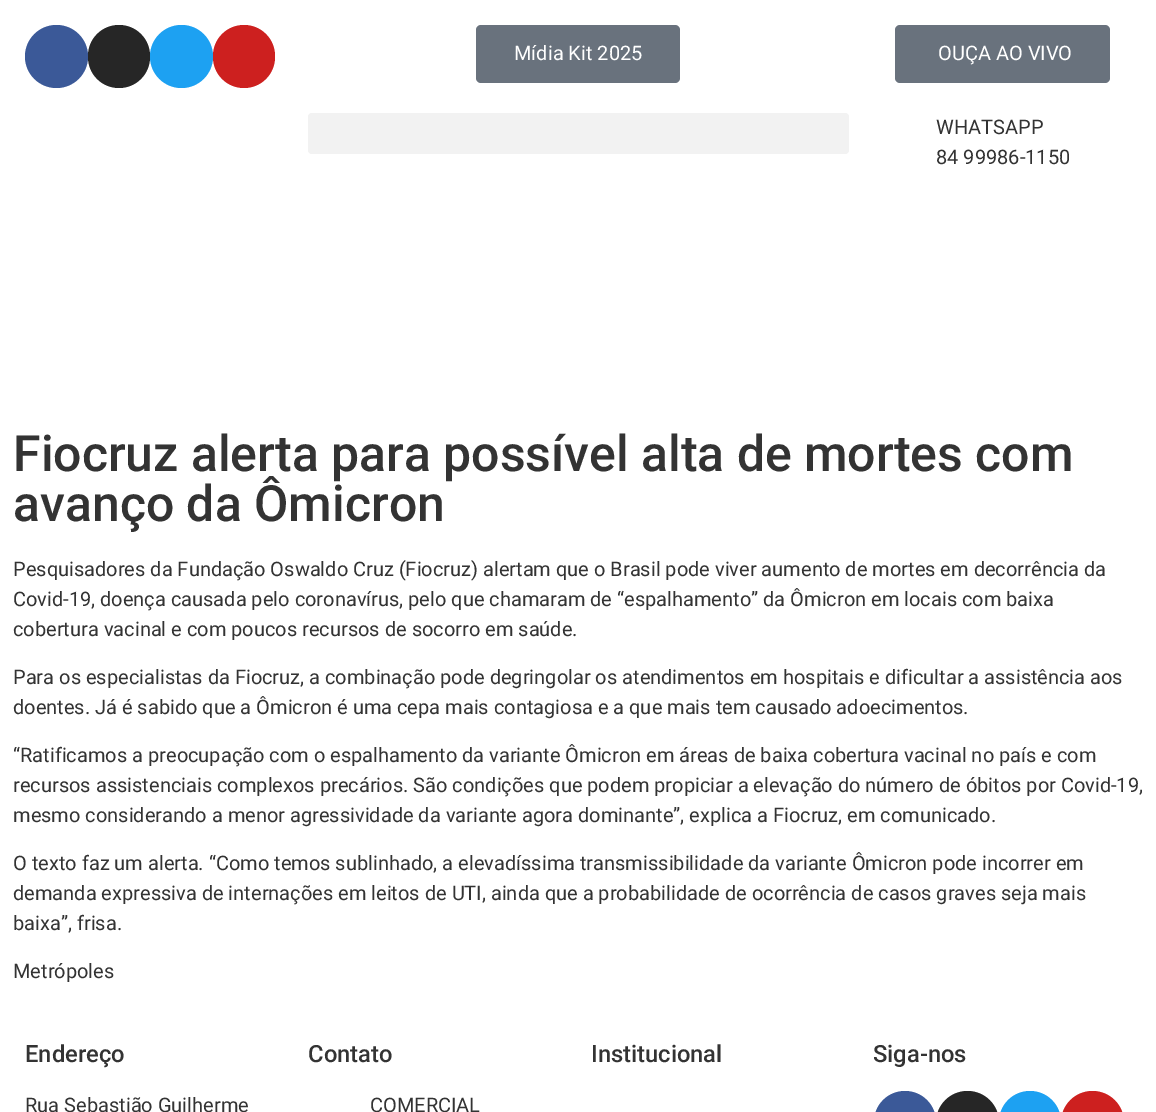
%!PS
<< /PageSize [1156 1112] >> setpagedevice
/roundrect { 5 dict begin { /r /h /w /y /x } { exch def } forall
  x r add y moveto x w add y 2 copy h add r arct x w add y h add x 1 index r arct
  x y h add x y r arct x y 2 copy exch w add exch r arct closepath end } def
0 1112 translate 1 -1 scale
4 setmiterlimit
1 setgray
0 0 1156 1112 rectfill
0.231 0.349 0.596 setrgbcolor
newpath 56.5 56.5 31.5 0 360 arc closepath fill
0.149 setgray
88 25 62 63 31 roundrect fill
0.114 0.631 0.949 setrgbcolor
newpath 181.5 56.5 31.5 0 360 arc closepath fill
0.804 0.125 0.122 setrgbcolor
213 25 62 63 31 roundrect fill
0.412 0.447 0.49 setrgbcolor
476 25 204 58 5 roundrect fill
/Roboto-Regular [20 0 0 -20 0 0] selectfont
1 setgray
514 60 moveto (Mídia Kit 2025) show
0.412 0.447 0.49 setrgbcolor
895 25 215 58 5 roundrect fill
1 setgray
938 60 moveto (OUÇA AO VIVO) show
0.949 setgray
308 113 541 41 4 roundrect fill
0.2 setgray
936 134 moveto (WHATSAPP) show
936 164 moveto (84 99986-1150) show
/Roboto-Medium [50 0 0 -50 0 0] selectfont
13 471 moveto (Fiocruz alerta para possível alta de mortes com) show
13 521 moveto (avanço da Ômicron) show
/Roboto-Regular [20 0 0 -20 0 0] selectfont
13 576 moveto (Pesquisadores da Fundação Oswaldo Cruz \(Fiocruz\) alertam que o Brasil pode viver aumento de mortes em decorrência da) show
13 606 moveto (Covid-19, doença causada pelo coronavírus, pelo que chamaram de “espalhamento” da Ômicron em locais com baixa) show
13 636 moveto (cobertura vacinal e com poucos recursos de socorro em saúde.) show
13 684 moveto (Para os especialistas da Fiocruz, a combinação pode degringolar os atendimentos em hospitais e dificultar a assistência aos) show
13 714 moveto (doentes. Já é sabido que a Ômicron é uma cepa mais contagiosa e a que mais tem causado adoecimentos.) show
13 762 moveto (“Ratificamos a preocupação com o espalhamento da variante Ômicron em áreas de baixa cobertura vacinal no país e com) show
13 792 moveto (recursos assistenciais complexos precários. São condições que podem propiciar a elevação do número de óbitos por Covid-19,) show
13 822 moveto (mesmo considerando a menor agressividade da variante agora dominante”, explica a Fiocruz, em comunicado.) show
13 870 moveto (O texto faz um alerta. “Como temos sublinhado, a elevadíssima transmissibilidade da variante Ômicron pode incorrer em) show
13 900 moveto (demanda expressiva de internações em leitos de UTI, ainda que a probabilidade de ocorrência de casos graves seja mais) show
13 930 moveto (baixa”, frisa.) show
13 978 moveto (Metrópoles) show
/Roboto-Medium [23.75 0 0 -23.75 0 0] selectfont
25 1062 moveto (Endereço) show
/Roboto-Regular [20 0 0 -20 0 0] selectfont
25 1112 moveto (Rua Sebastião Guilherme) show
/Roboto-Medium [23.75 0 0 -23.75 0 0] selectfont
308 1062 moveto (Contato) show
/Roboto-Regular [20 0 0 -20 0 0] selectfont
370 1112 moveto (COMERCIAL) show
/Roboto-Medium [23.75 0 0 -23.75 0 0] selectfont
591 1062 moveto (Institucional) show
873 1062 moveto (Siga-nos) show
0.231 0.349 0.596 setrgbcolor
874 1091 62 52 31 roundrect fill
0.149 setgray
936 1091 63 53 31.5 roundrect fill
0.114 0.631 0.949 setrgbcolor
999 1091 62 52 31 roundrect fill
0.804 0.125 0.122 setrgbcolor
1061 1091 63 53 31.5 roundrect fill
showpage
